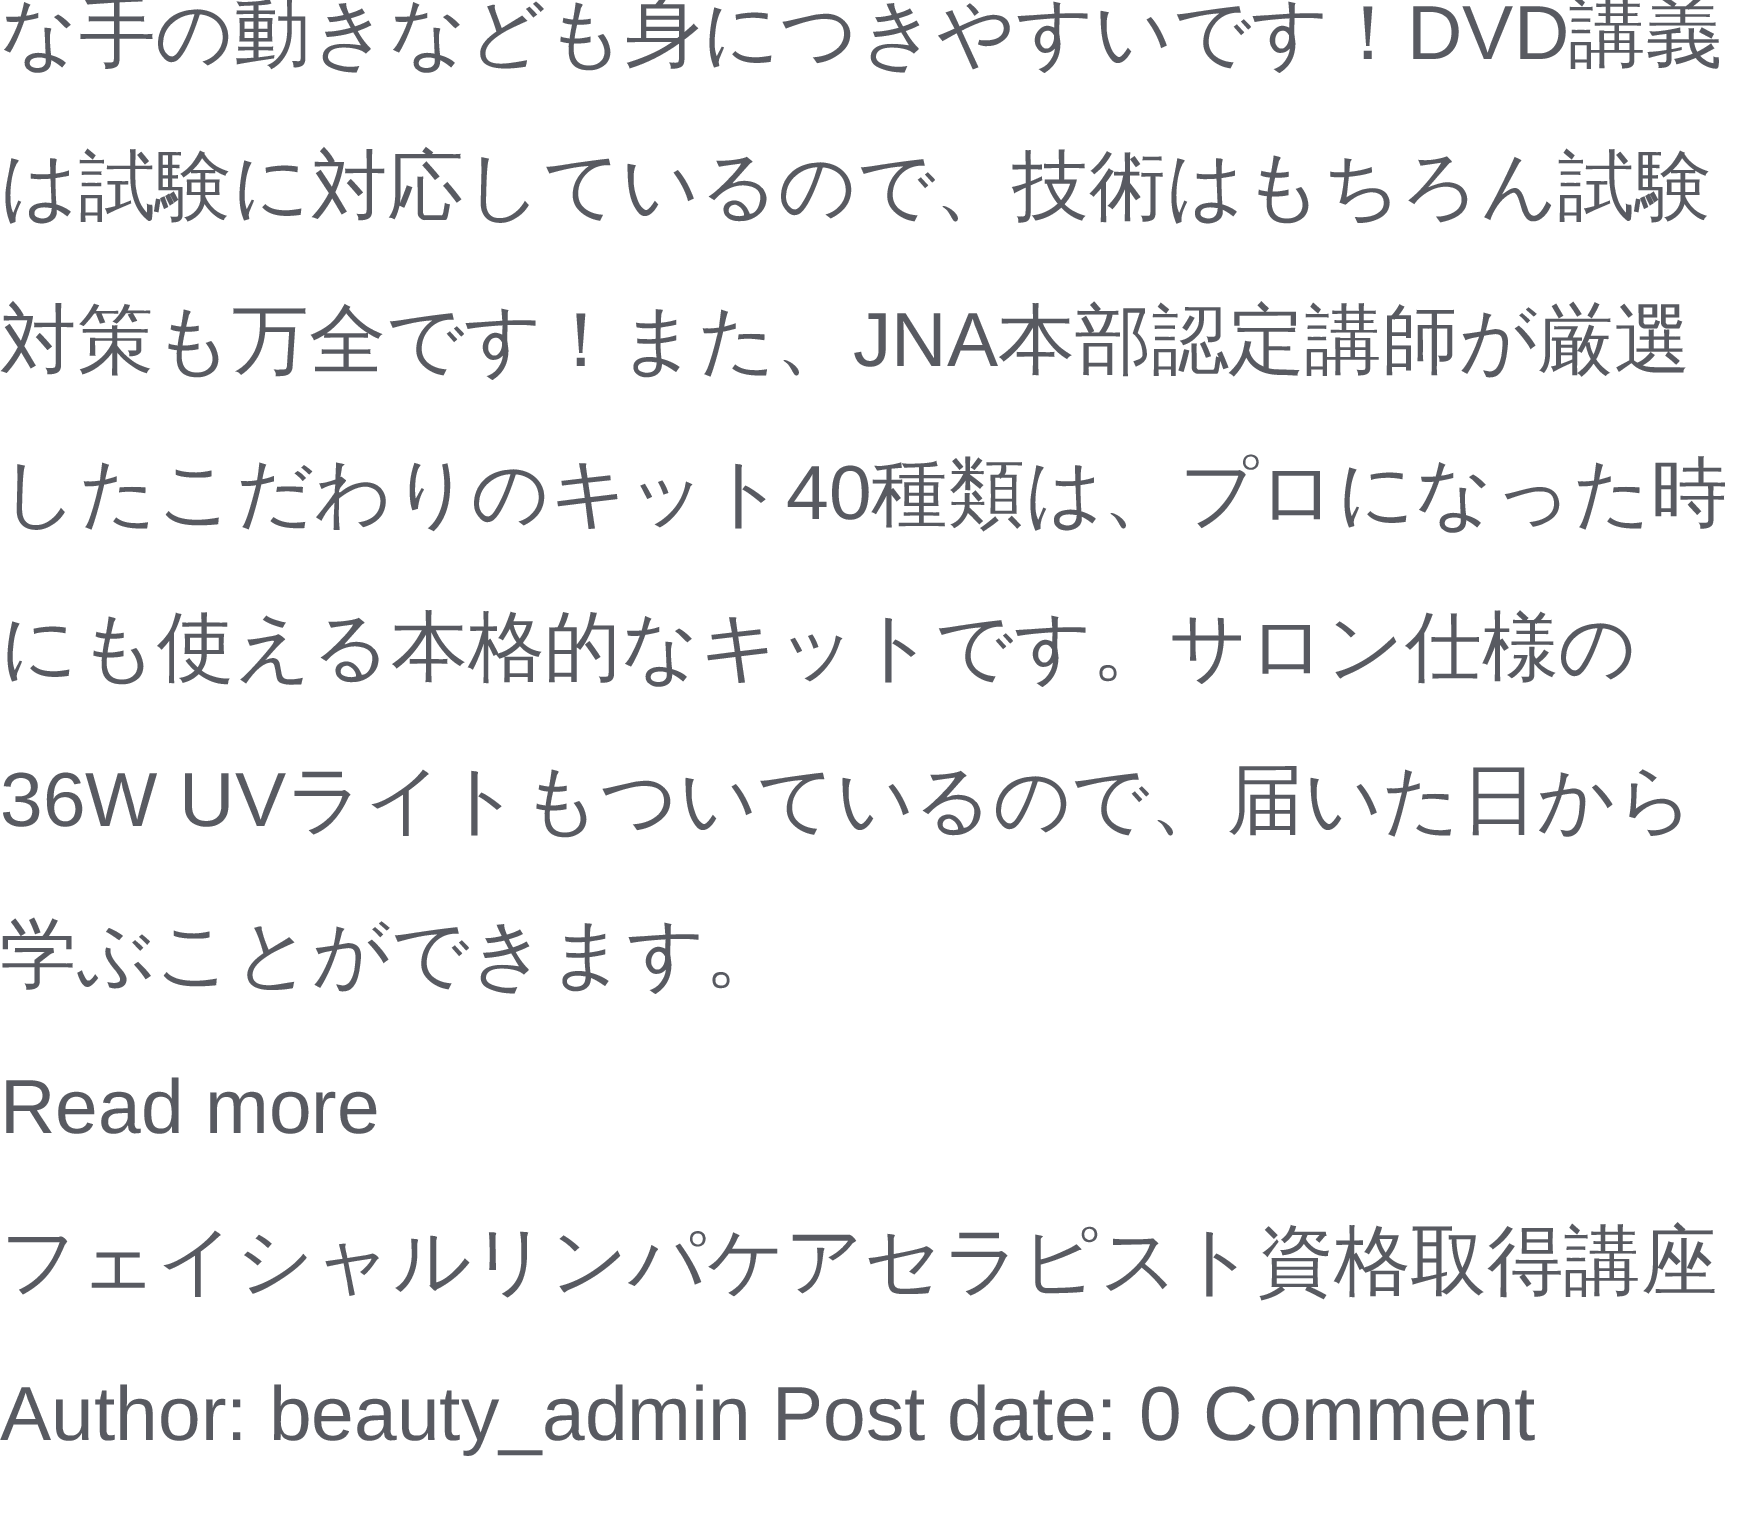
%!PS
<< /PageSize [1754 1525] >> setpagedevice
0 1525 translate 1 -1 scale
4 setmiterlimit
1 setgray
0 0 1754 1525 rectfill
/WenQuanYiZenHei-Medium [76.75 0 0 -76.75 0 0] selectfont
0.345 0.353 0.38 setrgbcolor
0 59 moveto (な手の動きなども身につきやすいです！) show
/LiberationSans-Regular [76.75 0 0 -76.75 0 0] selectfont
1407 59 moveto (DVD) show
/WenQuanYiZenHei-Medium [76.75 0 0 -76.75 0 0] selectfont
1569 59 moveto (講義) show
0 212 moveto (は試験に対応しているので、技術はもちろん試験) show
0 366 moveto (対策も万全です！また、) show
/LiberationSans-Regular [76.75 0 0 -76.75 0 0] selectfont
853 366 moveto (JNA) show
/WenQuanYiZenHei-Medium [76.75 0 0 -76.75 0 0] selectfont
998 366 moveto (本部認定講師が厳選) show
0 519 moveto (したこだわりのキット) show
/LiberationSans-Regular [76.75 0 0 -76.75 0 0] selectfont
786 519 moveto (40) show
/WenQuanYiZenHei-Medium [76.75 0 0 -76.75 0 0] selectfont
871 519 moveto (種類は、プロになった時) show
0 673 moveto (にも使える本格的なキットです。サロン仕様の) show
/LiberationSans-Regular [76.75 0 0 -76.75 0 0] selectfont
0 826 moveto (36W UV) show
/WenQuanYiZenHei-Medium [76.75 0 0 -76.75 0 0] selectfont
286 826 moveto (ライトもついているので、届いた日から) show
0 980 moveto (学ぶことができます。) show
/LiberationSans-Regular [76.75 0 0 -76.75 0 0] selectfont
0 1133 moveto (Read more) show
/WenQuanYiZenHei-Medium [76.75 0 0 -76.75 0 0] selectfont
0 1287 moveto (フェイシャルリンパケアセラピスト資格取得講座) show
/LiberationSans-Regular [76.75 0 0 -76.75 0 0] selectfont
0 1440 moveto (Author: beauty_admin Post date: 0 Comment) show
showpage
